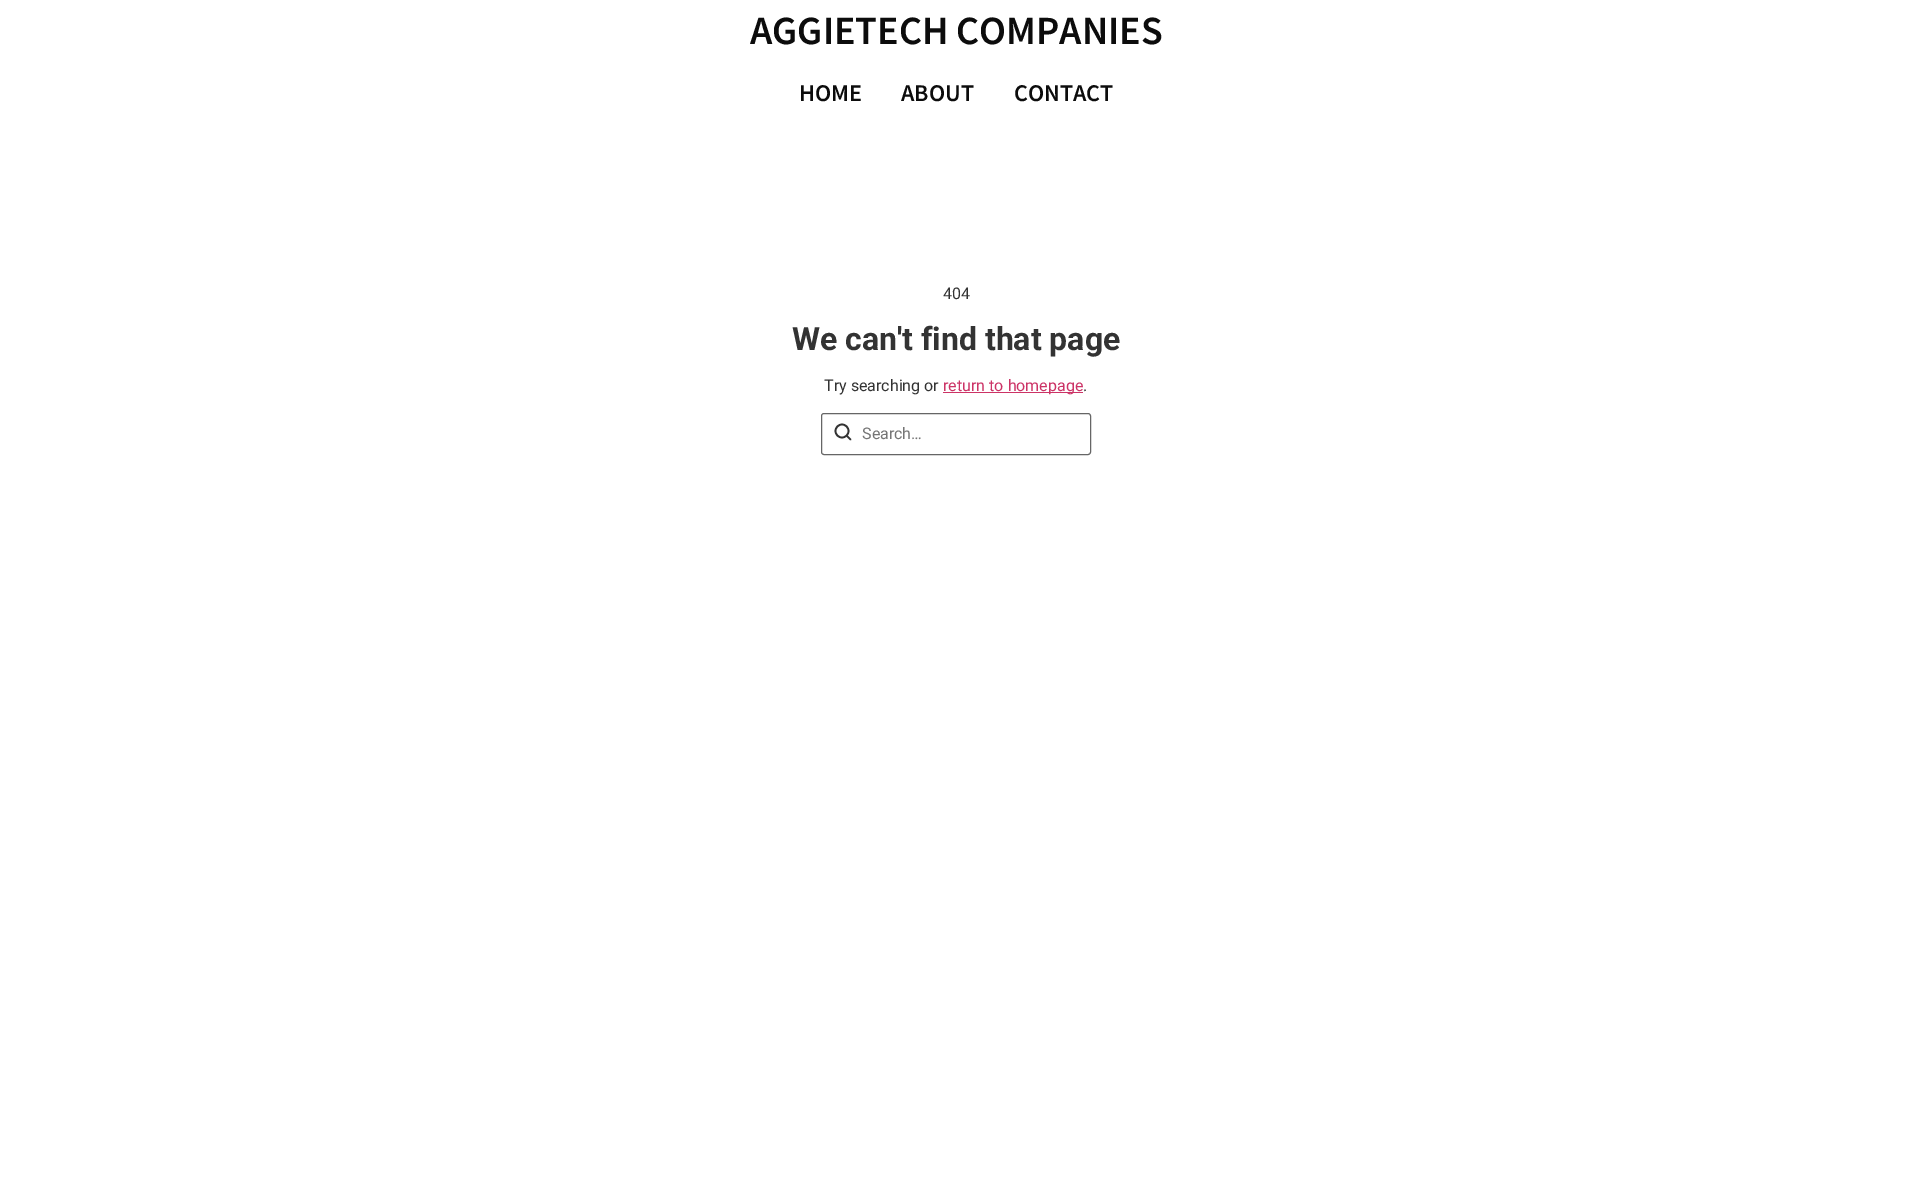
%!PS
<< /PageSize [1912 1183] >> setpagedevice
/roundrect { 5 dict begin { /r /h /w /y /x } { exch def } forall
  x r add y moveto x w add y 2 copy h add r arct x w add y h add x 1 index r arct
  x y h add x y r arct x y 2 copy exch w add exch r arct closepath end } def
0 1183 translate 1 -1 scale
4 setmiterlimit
1 setgray
0 0 1912 1183 rectfill
/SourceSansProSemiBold-SemiBold [40 0 0 -40 0 0] selectfont
0.047 setgray
750 44 moveto (AGGIETECH COMPANIES) show
/SourceSansProSemiBold-SemiBold [24 0 0 -24 0 0] selectfont
799 101 moveto (HOME) show
901 101 moveto (ABOUT) show
1014 101 moveto (CONTACT) show
/Roboto-Regular [16 0 0 -16 0 0] selectfont
0.2 setgray
943 299 moveto (404) show
/Roboto-Bold [32 0 0 -32 0 0] selectfont
792 350 moveto (We can't find that page) show
/Roboto-Regular [16 0 0 -16 0 0] selectfont
824 391 moveto (Try searching or) show
0.8 0.2 0.4 setrgbcolor
943 392 140 1 rectfill
943 391 moveto (return to homepage) show
0.2 setgray
1083 391 moveto (.) show
0.4 setgray
821.5 413.5 269 41 2.5 roundrect stroke
0.2 setgray
1.7 setlinewidth
newpath 842 431 6.5 0 360 arc closepath stroke
1 setlinecap
1 setlinejoin
newpath 850.5 439.5 moveto 847 436 lineto stroke
0.459 setgray
862 439 moveto (Search…) show
showpage
